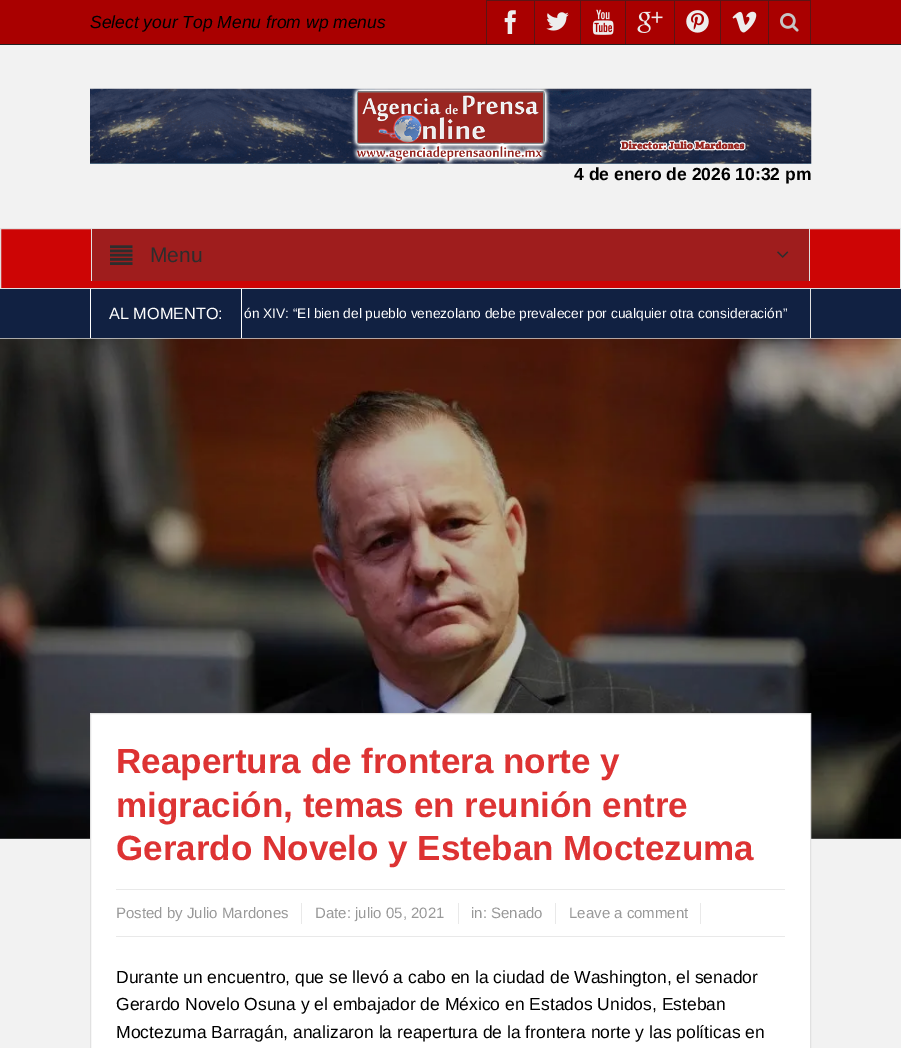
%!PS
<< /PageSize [901 1048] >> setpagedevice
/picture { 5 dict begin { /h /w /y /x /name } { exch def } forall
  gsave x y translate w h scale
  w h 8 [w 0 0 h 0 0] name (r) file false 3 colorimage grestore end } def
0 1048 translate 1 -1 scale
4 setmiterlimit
0.949 setgray
0 0 901 1048 rectfill
0.663 0 0 setrgbcolor
0 0 901 44 rectfill
0.133 setgray
0 44 901 1 rectfill
/LiberationSans-Italic [17.5 0 0 -17.5 0 0] selectfont
0 setgray
90 28 moveto (Select your Top Menu from wp menus) show
0.357 0.082 0.082 setrgbcolor
486 0 325 1 rectfill
486 0 1 44 rectfill
(img1.rgb) 504 10 12 24 picture
534 0 1 44 rectfill
(img2.rgb) 546 12 23 19 picture
580 0 1 44 rectfill
(img3.rgb) 592 9 22 26 picture
625 0 1 44 rectfill
(img4.rgb) 637 11 26 22 picture
674 0 1 44 rectfill
(img5.rgb) 686 10 23 23 picture
720 0 1 44 rectfill
(img6.rgb) 732 11 25 22 picture
810 0 1 44 rectfill
768 0 1 44 rectfill
(img7.rgb) 780 13 19 19 picture
(img8.rgb) 90 88 722 76 picture
/LiberationSans-Bold [17.5 0 0 -17.5 0 0] selectfont
0 setgray
574 180 moveto (4 de enero de 2026 10:32 pm) show
0.804 0.02 0.02 setrgbcolor
newpath 0.5 228.5 moveto 900.5 228.5 lineto 900.5 288.5 lineto 0.5 288.5 lineto closepath gsave fill grestore
0.882 setgray
stroke
0.624 0.114 0.114 setrgbcolor
92 229 717 52 rectfill
0.882 setgray
809 229 1 52 rectfill
91 229 1 52 rectfill
(img9.rgb) 110 245 23 20 picture
/LiberationSans-Regular [21 0 0 -21 0 0] selectfont
0.176 setgray
150 262 moveto (Menu) show
(img10.rgb) 777 251 12 7 picture
0.067 0.129 0.259 setrgbcolor
0 289 901 49 rectfill
0.882 setgray
0 338 901 1 rectfill
1 setgray
241 289 1 49 rectfill
90 289 1 49 rectfill
/LiberationSans-Regular [16.25 0 0 -16.25 0 0] selectfont
109 319 moveto (AL MOMENTO:) show
0.882 setgray
810 289 1 49 rectfill
/LiberationSans-Regular [13.75 0 0 -13.75 0 0] selectfont
1 setgray
244 318 moveto (ón XIV: “El bien del pueblo venezolano debe prevalecer por cualquier otra consideración”) show
(img11.rgb) 0 338 901 501 picture
(img12.rgb) 0 338 901 501 picture
newpath 90.5 713.5 moveto 810.5 713.5 lineto 810.5 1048.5 lineto 90.5 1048.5 lineto closepath gsave fill grestore
0.882 setgray
stroke
/LiberationSans-Bold [35 0 0 -35 0 0] selectfont
0.867 0.2 0.2 setrgbcolor
116 773 moveto (Reapertura de frontera norte y) show
116 817 moveto (migración, temas en reunión entre) show
116 860 moveto (Gerardo Novelo y Esteban Moctezuma) show
0.914 setgray
116 889 669 1 rectfill
116 936 669 1 rectfill
301 903 1 21 rectfill
/LiberationSans-Regular [15 0 0 -15 0 0] selectfont
0.6 setgray
116 918 moveto (Posted by Julio Mardones) show
0.914 setgray
458 903 1 21 rectfill
0.6 setgray
315 918 moveto (Date: julio 05, 2021) show
0.914 setgray
555 903 1 21 rectfill
0.6 setgray
471 918 moveto (in: Senado) show
0.914 setgray
700 903 1 21 rectfill
0.6 setgray
569 918 moveto (Leave a comment) show
/LiberationSans-Regular [17.5 0 0 -17.5 0 0] selectfont
0 setgray
116 983 moveto (Durante un encuentro, que se llevó a cabo en la ciudad de Washington, el senador) show
116 1010 moveto (Gerardo Novelo Osuna y el embajador de México en Estados Unidos, Esteban) show
116 1038 moveto (Moctezuma Barragán, analizaron la reapertura de la frontera norte y las políticas en) show
showpage
